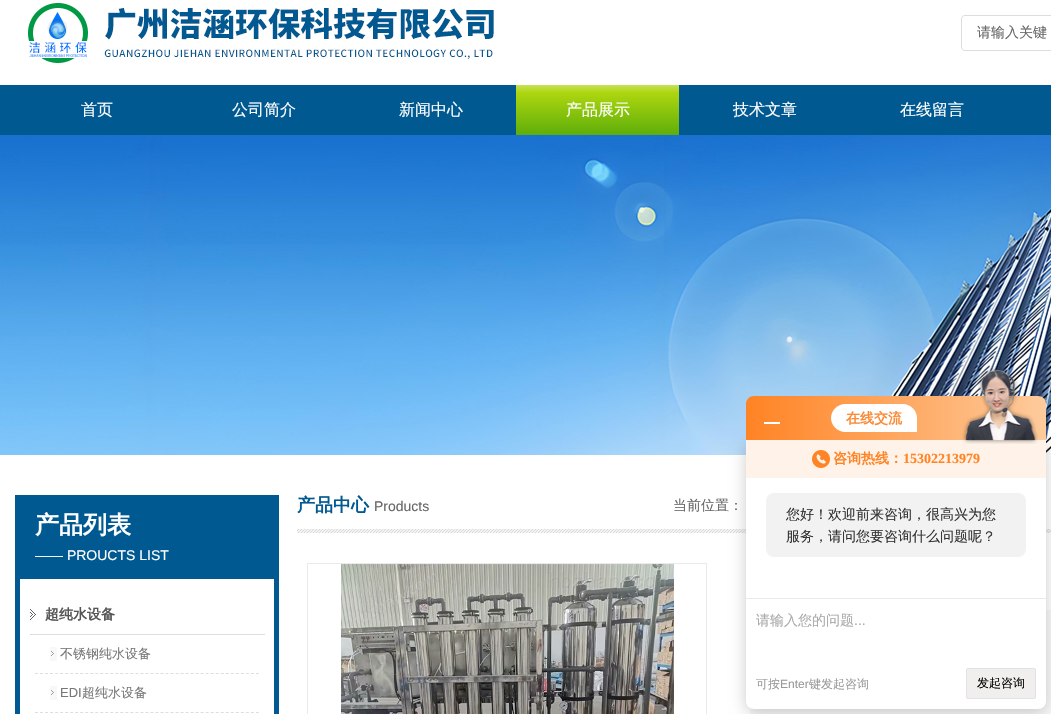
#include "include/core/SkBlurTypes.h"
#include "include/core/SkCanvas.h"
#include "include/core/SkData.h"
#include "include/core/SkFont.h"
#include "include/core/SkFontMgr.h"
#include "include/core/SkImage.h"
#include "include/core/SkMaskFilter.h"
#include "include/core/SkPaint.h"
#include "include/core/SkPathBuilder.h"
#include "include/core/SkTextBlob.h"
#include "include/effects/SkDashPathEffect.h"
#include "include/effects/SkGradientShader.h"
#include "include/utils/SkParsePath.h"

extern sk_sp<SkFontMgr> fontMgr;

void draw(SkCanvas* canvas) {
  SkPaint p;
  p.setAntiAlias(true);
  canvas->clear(SK_ColorWHITE);
  p.setColor(SkColorSetRGB(137, 188, 235));
  p.setMaskFilter(SkMaskFilter::MakeBlur(kNormal_SkBlurStyle, 1.5f));
  canvas->drawRect(SkRect::MakeLTRB(0, 87, 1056, 137), p);
  p.setMaskFilter(nullptr);
  canvas->drawImageRect(SkImages::DeferredFromEncodedData(SkData::MakeFromFileName("images/1.png")), SkRect::MakeLTRB(15, 3, 615, 85), SkSamplingOptions());
  p.setColor(SkColorSetRGB(221, 221, 221));
  canvas->drawPath(SkPathBuilder(SkPathFillType::kEvenOdd).moveTo(965, 15).lineTo(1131, 15).lineTo(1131, 51).lineTo(965, 51).cubicTo(963, 51, 961, 49, 961, 47).lineTo(961, 19).cubicTo(961, 17, 963, 15, 965, 15).close().moveTo(965, 16).lineTo(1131, 16).lineTo(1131, 50).lineTo(965, 50).cubicTo(963, 50, 962, 49, 962, 47).lineTo(962, 19).cubicTo(962, 17, 963, 16, 965, 16).close().detach(), p);
  p.setColor(SkColorSetRGB(0, 89, 145));
  canvas->drawRect(SkRect::MakeLTRB(0, 85, 1051, 135), p);
  {
    const SkColor colors[] = {SkColorSetRGB(251, 251, 251), SkColorSetRGB(174, 214, 15), SkColorSetRGB(66, 160, 8)};
    const float stops[] = {0, 0.3f, 1};
    const SkPoint ends[] = {{598, 68}, {598, 150}};
    p.setShader(SkGradientShader::MakeLinear(ends, colors, stops, 3, SkTileMode::kClamp));
    p.setAlpha(255);
  }
  canvas->drawRect(SkRect::MakeLTRB(516, 85, 679, 135), p);
  canvas->drawImageRect(SkImages::DeferredFromEncodedData(SkData::MakeFromFileName("images/2.png")), SkRect::MakeLTRB(0, 135, 1051, 455), SkSamplingOptions());
  canvas->drawImageRect(SkImages::DeferredFromEncodedData(SkData::MakeFromFileName("images/3.png")), SkRect::MakeLTRB(297, 529, 1051, 533), SkSamplingOptions());
  p.setStyle(SkPaint::kStroke_Style);
  p.setStrokeWidth(1);
  p.setShader(nullptr);
  p.setColor(SkColorSetRGB(234, 234, 234));
  canvas->drawRect(SkRect::MakeLTRB(307.5f, 563.5f, 706.5f, 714.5f), p);
  canvas->drawImageRect(SkImages::DeferredFromEncodedData(SkData::MakeFromFileName("images/4.png")), SkRect::MakeLTRB(341, 564, 674, 714), SkSamplingOptions());
  p.setStyle(SkPaint::kFill_Style);
  p.setColor(SkColorSetRGB(248, 248, 248));
  canvas->drawRect(SkRect::MakeLTRB(750, 610, 1051, 714), p);
  p.setColor(SkColorSetRGB(0, 89, 145));
  canvas->drawRect(SkRect::MakeLTRB(15, 495, 279, 579), p);
  canvas->drawRect(SkRect::MakeLTRB(274, 579, 279, 714), p);
  canvas->drawRect(SkRect::MakeLTRB(15, 579, 20, 714), p);
  canvas->drawImageRect(SkImages::DeferredFromEncodedData(SkData::MakeFromFileName("images/5.png")), SkRect::MakeLTRB(30, 609, 36, 620), SkSamplingOptions());
  p.setColor(SkColorSetRGB(222, 222, 222));
  canvas->drawRect(SkRect::MakeLTRB(30, 634, 265, 635), p);
  p.setStyle(SkPaint::kStroke_Style);
  p.setPathEffect(SkDashPathEffect::Make({{3, 2.02f}}, 0));
  canvas->drawPath(SkPathBuilder().moveTo(35, 673.5f).lineTo(259, 673.5f).detach(), p);
  p.setPathEffect(nullptr);
  canvas->drawImageRect(SkImages::DeferredFromEncodedData(SkData::MakeFromFileName("images/6.png")), SkRect::MakeLTRB(50, 647, 57, 661), SkSamplingOptions());
  p.setPathEffect(SkDashPathEffect::Make({{3, 2.02f}}, 0));
  canvas->drawPath(SkPathBuilder().moveTo(35, 712.5f).lineTo(259, 712.5f).detach(), p);
  p.setPathEffect(nullptr);
  canvas->drawImageRect(SkImages::DeferredFromEncodedData(SkData::MakeFromFileName("images/6.png")), SkRect::MakeLTRB(50, 686, 57, 700), SkSamplingOptions());
  p.setStyle(SkPaint::kFill_Style);
  p.setColor(SkColorSetARGB(51, 0, 0, 0));
  p.setMaskFilter(SkMaskFilter::MakeBlur(kNormal_SkBlurStyle, 8));
  canvas->drawRoundRect(SkRect::MakeLTRB(746, 444, 1046, 713), 8, 8, p);
  p.setMaskFilter(nullptr);
  {
    const SkColor colors[] = {SkColorSetRGB(255, 131, 36), SkColorSetRGB(254, 203, 156)};
    const float stops[] = {0, 1};
    const SkPoint ends[] = {{746, 418}, {1046, 418}};
    p.setShader(SkGradientShader::MakeLinear(ends, colors, stops, 2, SkTileMode::kClamp));
    p.setAlpha(255);
  }
  canvas->drawPath(SkPathBuilder().moveTo(754, 396).lineTo(1038, 396).cubicTo(1042.5f, 396, 1046, 399.5f, 1046, 404).lineTo(1046, 440).lineTo(746, 440).lineTo(746, 404).cubicTo(746, 399.5f, 749.5f, 396, 754, 396).close().detach(), p);
  p.setShader(nullptr);
  p.setColor(SK_ColorWHITE);
  canvas->drawRect(SkRect::MakeLTRB(764, 422, 780, 424), p);
  canvas->drawPath(SkPathBuilder().moveTo(845, 404).lineTo(903, 404).cubicTo(910.5f, 404, 917, 410.5f, 917, 418).lineTo(917, 432).lineTo(845, 432).cubicTo(837.5f, 432, 831, 425.5f, 831, 418).cubicTo(831, 410.5f, 837.5f, 404, 845, 404).close().detach(), p);
  canvas->drawPath(SkPathBuilder().moveTo(746, 440).lineTo(1046, 440).lineTo(1046, 701).cubicTo(1046, 705.5f, 1042.5f, 709, 1038, 709).lineTo(754, 709).cubicTo(749.5f, 709, 746, 705.5f, 746, 701).close().detach(), p);
  p.setColor(SkColorSetRGB(255, 243, 233));
  canvas->drawRect(SkRect::MakeLTRB(746, 440, 1046, 478), p);
  canvas->drawImageRect(SkImages::DeferredFromEncodedData(SkData::MakeFromFileName("images/7.png")), SkRect::MakeLTRB(962, 366, 1038, 444), SkSamplingOptions());
  canvas->drawImageRect(SkImages::DeferredFromEncodedData(SkData::MakeFromFileName("images/8.png")), SkRect::MakeLTRB(812, 450, 830, 468), SkSamplingOptions());
  p.setColor(SkColorSetRGB(242, 242, 242));
  canvas->drawRoundRect(SkRect::MakeLTRB(766, 493, 1026, 557), 8, 8, p);
  p.setColor(SkColorSetRGB(234, 234, 234));
  canvas->drawRect(SkRect::MakeLTRB(746, 598, 1046, 599), p);
  p.setColor(SkColorSetRGB(240, 239, 237));
  canvas->drawRoundRect(SkRect::MakeLTRB(966.5f, 668.5f, 1035.5f, 698.5f), 1.5f, 1.5f, p);
  p.setStyle(SkPaint::kStroke_Style);
  p.setColor(SkColorSetRGB(226, 226, 226));
  canvas->drawRoundRect(SkRect::MakeLTRB(966.5f, 668.5f, 1035.5f, 698.5f), 1.5f, 1.5f, p);
  SkFont font1(fontMgr->matchFamilyStyle("WenQuanYi Zen Hei", SkFontStyle(500, SkFontStyle::kNormal_Width, SkFontStyle::kUpright_Slant)), 14);
  font1.setSubpixel(true);
  p.setStyle(SkPaint::kFill_Style);
  p.setColor(SkColorSetRGB(102, 102, 102));
  canvas->drawString("请输入关键", 977, 37, font1, p);
  SkFont font2(fontMgr->matchFamilyStyle("WenQuanYi Zen Hei", SkFontStyle(500, SkFontStyle::kNormal_Width, SkFontStyle::kUpright_Slant)), 16);
  font2.setSubpixel(true);
  p.setColor(SK_ColorWHITE);
  canvas->drawString("首页", 81, 115, font2, p);
  canvas->drawString("公司简介", 232, 115, font2, p);
  canvas->drawString("新闻中心", 399, 115, font2, p);
  canvas->drawString("产品展示", 566, 115, font2, p);
  canvas->drawString("技术文章", 733, 115, font2, p);
  canvas->drawString("在线留言", 900, 115, font2, p);
  SkFont font3(fontMgr->matchFamilyStyle("WenQuanYi Zen Hei", SkFontStyle::Bold()), 18);
  font3.setSubpixel(true);
  p.setColor(SkColorSetRGB(0, 89, 145));
  canvas->drawString("产品中心", 297, 511, font3, p);
  SkFont font4(fontMgr->matchFamilyStyle("Liberation Sans", SkFontStyle::Normal()), 14);
  font4.setSubpixel(true);
  p.setColor(SkColorSetRGB(102, 102, 102));
  canvas->drawString("Products", 374, 511, font4, p);
  canvas->drawString("当前位置：", 673, 510, font1, p);
  SkFont font5(fontMgr->matchFamilyStyle("WenQuanYi Zen Hei", SkFontStyle::Bold()), 24);
  font5.setSubpixel(true);
  p.setColor(SK_ColorWHITE);
  canvas->drawString("产品列表", 35, 533, font5, p);
  canvas->drawString("—— PROUCTS LIST", 35, 560, font4, p);
  SkFont font6(fontMgr->matchFamilyStyle("WenQuanYi Zen Hei", SkFontStyle::Bold()), 14);
  font6.setSubpixel(true);
  p.setColor(SkColorSetRGB(85, 85, 85));
  canvas->drawString("超纯水设备", 45, 619, font6, p);
  SkFont font7(fontMgr->matchFamilyStyle("WenQuanYi Zen Hei", SkFontStyle(500, SkFontStyle::kNormal_Width, SkFontStyle::kUpright_Slant)), 13);
  font7.setSubpixel(true);
  p.setColor(SkColorSetRGB(119, 119, 119));
  canvas->drawString("不锈钢纯水设备", 60, 658, font7, p);
  SkFont font8(fontMgr->matchFamilyStyle("Liberation Sans", SkFontStyle::Normal()), 13);
  font8.setSubpixel(true);
  canvas->drawString("EDI", 60, 697, font8, p);
  canvas->drawString("超纯水设备", 82, 697, font7, p);
  p.setColor(SkColorSetRGB(251, 139, 54));
  canvas->drawString("在线交流", 846, 423, font6, p);
  p.setColor(SkColorSetRGB(255, 132, 38));
  canvas->drawString("咨询热线：", 833, 463, font6, p);
  SkFont font9(fontMgr->matchFamilyStyle("Liberation Serif", SkFontStyle::Bold()), 14);
  font9.setSubpixel(true);
  canvas->drawString("15302213979", 903, 463, font9, p);
  p.setColor(SkColorSetRGB(51, 51, 51));
  canvas->drawString("您好！欢迎前来咨询，很高兴为您", 786, 519, font1, p);
  canvas->drawString("服务，请问您要咨询什么问题呢？", 786, 541, font1, p);
  p.setColor(SkColorSetRGB(170, 170, 170));
  canvas->drawString("请输入您的问题", 756, 625, font1, p);
  canvas->drawString("...", 854, 625, font4, p);
  SkFont font10(fontMgr->matchFamilyStyle("WenQuanYi Zen Hei", SkFontStyle(500, SkFontStyle::kNormal_Width, SkFontStyle::kUpright_Slant)), 12);
  font10.setSubpixel(true);
  p.setColor(SkColorSetRGB(153, 153, 153));
  canvas->drawString("可按", 756, 688, font10, p);
  SkFont font11(fontMgr->matchFamilyStyle("Liberation Sans", SkFontStyle::Normal()), 12);
  font11.setSubpixel(true);
  canvas->drawString("Enter", 780, 688, font11, p);
  canvas->drawString("键发起咨询", 809, 688, font10, p);
  p.setColor(SK_ColorBLACK);
  canvas->drawString("发起咨询", 977, 687, font10, p);
}
